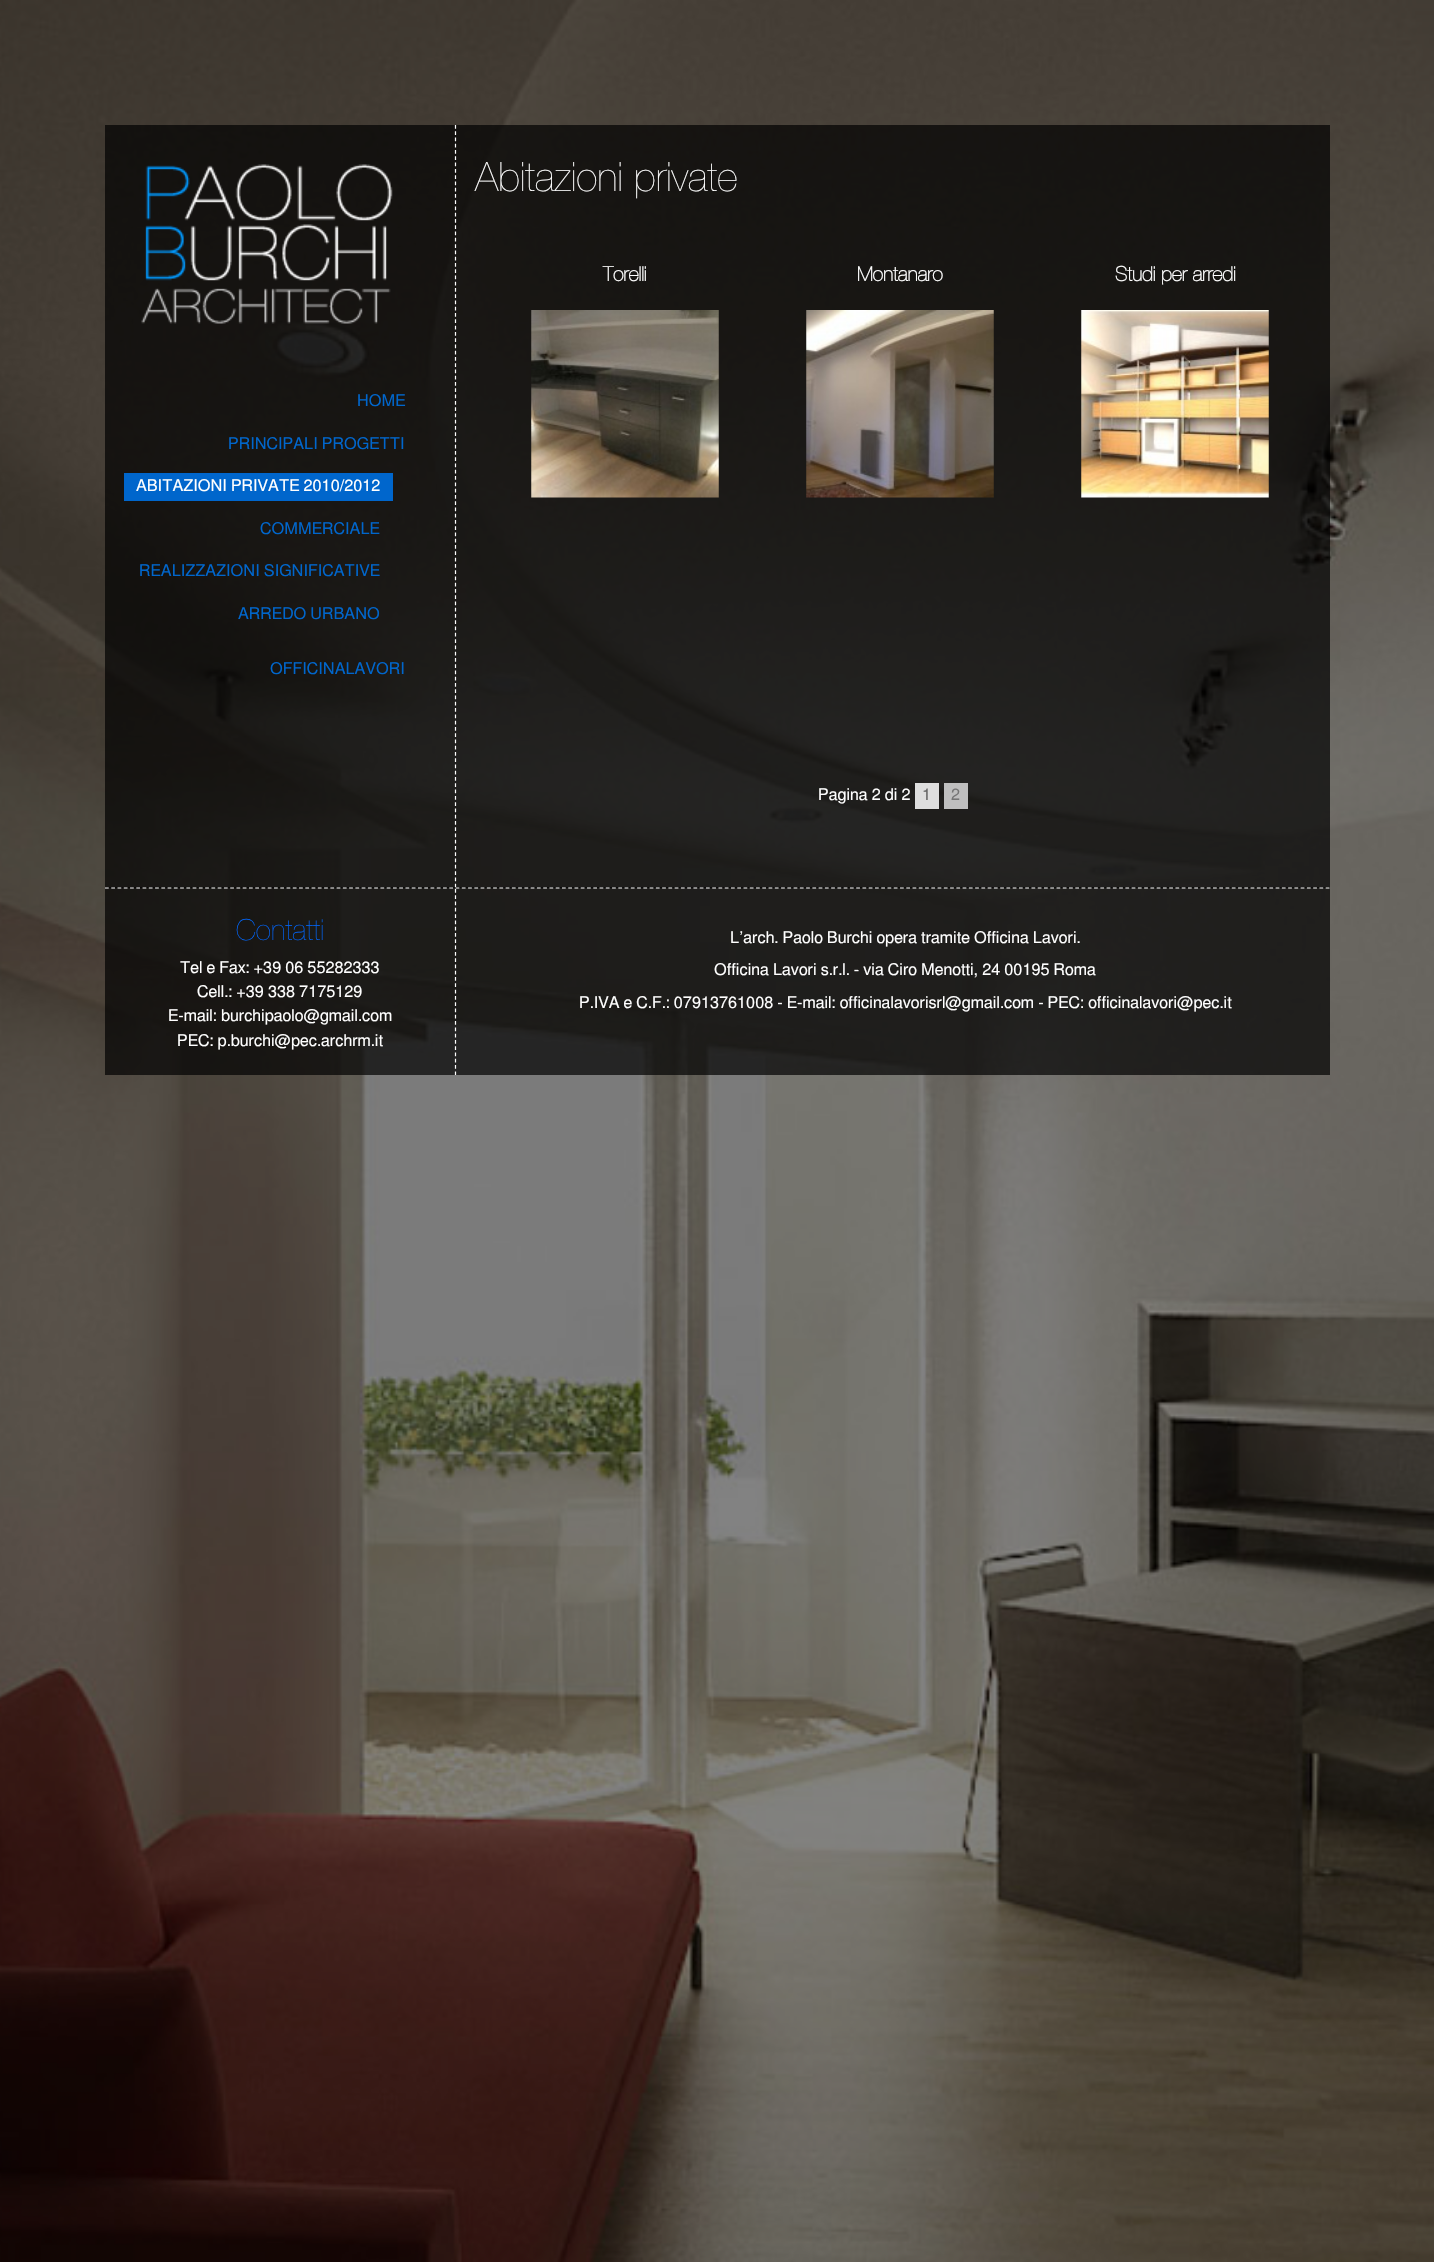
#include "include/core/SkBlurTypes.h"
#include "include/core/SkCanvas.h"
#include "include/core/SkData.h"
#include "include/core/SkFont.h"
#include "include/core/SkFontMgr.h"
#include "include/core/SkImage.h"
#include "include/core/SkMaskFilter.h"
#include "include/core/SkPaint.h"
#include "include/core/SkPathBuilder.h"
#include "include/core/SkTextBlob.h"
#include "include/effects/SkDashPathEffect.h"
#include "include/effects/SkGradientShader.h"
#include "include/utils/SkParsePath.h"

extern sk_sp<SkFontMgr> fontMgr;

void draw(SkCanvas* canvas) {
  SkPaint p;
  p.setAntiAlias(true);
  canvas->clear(SK_ColorBLACK);
  canvas->drawImageRect(SkImages::DeferredFromEncodedData(SkData::MakeFromFileName("images/1.png")), SkRect::MakeLTRB(0, 0, 1434, 2262), SkSamplingOptions());
  p.setColor(SkColorSetARGB(179, 0, 0, 0));
  canvas->drawRect(SkRect::MakeLTRB(105, 125, 1330, 888), p);
  p.setStyle(SkPaint::kStroke_Style);
  p.setStrokeWidth(1.2f);
  p.setColor(SK_ColorWHITE);
  p.setPathEffect(SkDashPathEffect::Make({{3.75f, 2.52f}}, 0));
  canvas->drawPath(SkPathBuilder().moveTo(455.5f, 125).lineTo(455.5f, 887.5f).detach(), p);
  p.setPathEffect(nullptr);
  canvas->drawImageRect(SkImages::DeferredFromEncodedData(SkData::MakeFromFileName("images/2.png")), SkRect::MakeLTRB(141, 164, 393, 324), SkSamplingOptions());
  p.setStyle(SkPaint::kFill_Style);
  p.setColor(SkColorSetRGB(0, 102, 204));
  canvas->drawRect(SkRect::MakeLTRB(124, 473, 393, 501), p);
  canvas->drawImageRect(SkImages::DeferredFromEncodedData(SkData::MakeFromFileName("images/3.png")), SkRect::MakeLTRB(531, 310, 719, 498), SkSamplingOptions());
  canvas->drawImageRect(SkImages::DeferredFromEncodedData(SkData::MakeFromFileName("images/4.png")), SkRect::MakeLTRB(806, 310, 994, 498), SkSamplingOptions());
  canvas->drawImageRect(SkImages::DeferredFromEncodedData(SkData::MakeFromFileName("images/5.png")), SkRect::MakeLTRB(1081, 310, 1269, 498), SkSamplingOptions());
  p.setColor(SkColorSetRGB(222, 222, 222));
  canvas->drawRect(SkRect::MakeLTRB(915, 783, 939, 809), p);
  p.setColor(SkColorSetRGB(191, 191, 191));
  canvas->drawRect(SkRect::MakeLTRB(944, 783, 968, 809), p);
  p.setColor(SkColorSetARGB(179, 0, 0, 0));
  canvas->drawRect(SkRect::MakeLTRB(105, 887, 1330, 1075), p);
  p.setStyle(SkPaint::kStroke_Style);
  p.setColor(SK_ColorWHITE);
  p.setPathEffect(SkDashPathEffect::Make({{3.75f, 2.51f}}, 0));
  canvas->drawPath(SkPathBuilder().moveTo(105, 888).lineTo(1330, 888).detach(), p);
  p.setPathEffect(nullptr);
  p.setPathEffect(SkDashPathEffect::Make({{3.75f, 2.54f}}, 0));
  canvas->drawPath(SkPathBuilder().moveTo(455.5f, 889).lineTo(455.5f, 1075).detach(), p);
  p.setPathEffect(nullptr);
  SkFont font1(fontMgr->matchFamilyStyle("FreeSans", SkFontStyle::Normal()), 16.25f);
  font1.setSubpixel(true);
  p.setStyle(SkPaint::kFill_Style);
  p.setColor(SkColorSetRGB(0, 102, 204));
  canvas->drawString("HOME", 357, 406, font1, p);
  canvas->drawString("PRINCIPALI PROGETTI", 228, 449, font1, p);
  p.setColor(SK_ColorWHITE);
  canvas->drawString("ABITAZIONI PRIVATE 2010/2012", 136, 491, font1, p);
  p.setColor(SkColorSetRGB(0, 102, 204));
  canvas->drawString("COMMERCIALE", 260, 534, font1, p);
  canvas->drawString("REALIZZAZIONI SIGNIFICATIVE", 139, 576, font1, p);
  canvas->drawString("ARREDO URBANO", 238, 619, font1, p);
  canvas->drawString("OFFICINALAVORI", 270, 674, font1, p);
  SkFont font2(fontMgr->matchFamilyStyle("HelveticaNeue", SkFontStyle::Normal()), 40.5f);
  font2.setSubpixel(true);
  p.setColor(SK_ColorWHITE);
  canvas->drawString("Abitazioni private", 475, 191, font2, p);
  SkFont font3(fontMgr->matchFamilyStyle("HelveticaNeue", SkFontStyle::Bold()), 20);
  font3.setSubpixel(true);
  canvas->drawString("Torelli", 603, 281, font3, p);
  canvas->drawString("Montanaro", 857, 281, font3, p);
  canvas->drawString("Studi per arredi", 1115, 281, font3, p);
  canvas->drawString("Pagina 2 di 2", 818, 800, font1, p);
  p.setColor(SkColorSetRGB(102, 102, 102));
  canvas->drawString("1", 922, 800, font1, p);
  p.setColor(SkColorSetRGB(117, 117, 117));
  canvas->drawString("2", 951, 800, font1, p);
  SkFont font4(fontMgr->matchFamilyStyle("HelveticaNeue", SkFontStyle::Normal()), 29);
  font4.setSubpixel(true);
  p.setColor(SkColorSetRGB(0, 102, 255));
  canvas->drawString("Contatti", 236, 940, font4, p);
  p.setColor(SK_ColorWHITE);
  canvas->drawString("Tel e Fax: +39 06 55282333", 180, 973, font1, p);
  canvas->drawString("Cell.: +39 338 7175129", 197, 997, font1, p);
  canvas->drawString("E-mail: burchipaolo@gmail.com", 168, 1021, font1, p);
  canvas->drawString("PEC: p.burchi@pec.archrm.it", 177, 1046, font1, p);
  canvas->drawString("L’arch. Paolo Burchi opera tramite Officina Lavori.", 730, 943, font1, p);
  canvas->drawString("Officina Lavori s.r.l. - via Ciro Menotti, 24 00195 Roma", 714, 975, font1, p);
  canvas->drawString("P.IVA e C.F.: 07913761008 - E-mail: officinalavorisrl@gmail.com - PEC: officinalavori@pec.it", 579, 1008, font1, p);
}
